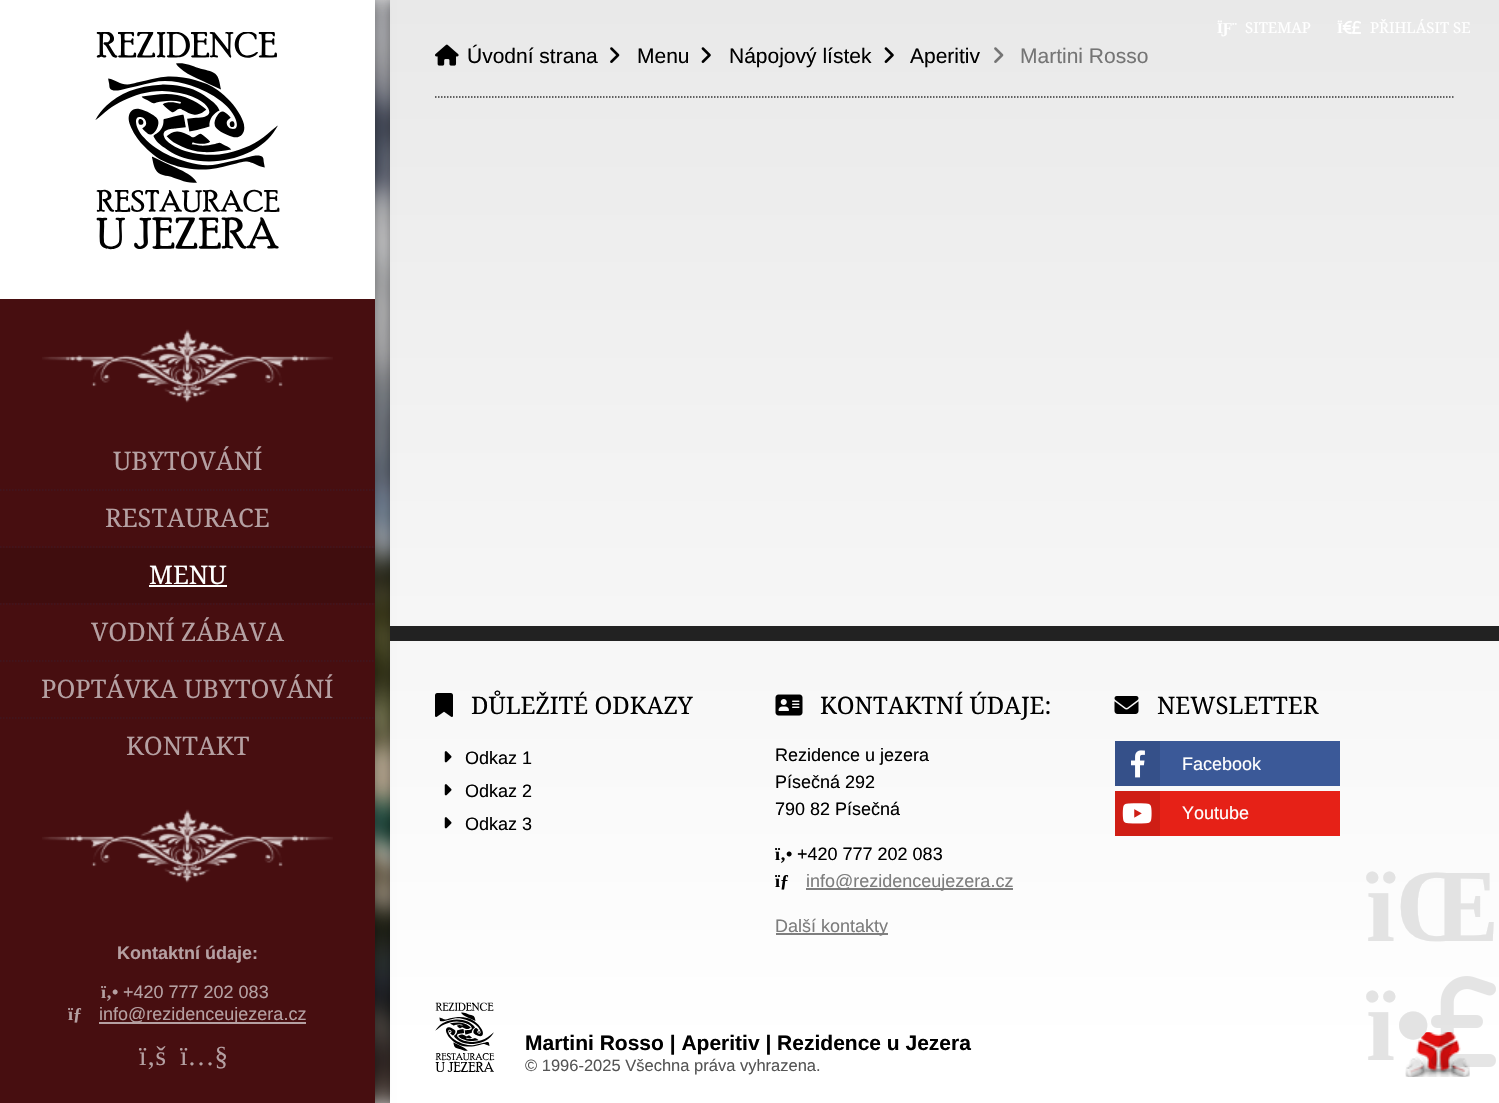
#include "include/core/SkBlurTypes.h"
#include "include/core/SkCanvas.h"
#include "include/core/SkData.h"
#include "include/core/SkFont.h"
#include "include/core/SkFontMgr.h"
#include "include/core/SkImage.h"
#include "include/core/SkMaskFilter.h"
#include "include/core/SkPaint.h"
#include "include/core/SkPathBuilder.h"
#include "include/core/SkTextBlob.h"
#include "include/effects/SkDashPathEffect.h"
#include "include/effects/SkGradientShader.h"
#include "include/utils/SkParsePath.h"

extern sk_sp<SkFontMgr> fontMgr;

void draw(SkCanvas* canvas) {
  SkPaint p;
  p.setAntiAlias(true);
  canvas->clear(SK_ColorWHITE);
  canvas->drawImageRect(SkImages::DeferredFromEncodedData(SkData::MakeFromFileName("images/1.png")), SkRect::MakeLTRB(375, 0, 390, 1103), SkSamplingOptions());
  p.setColor(SkColorSetARGB(26, 0, 0, 0));
  p.setMaskFilter(SkMaskFilter::MakeBlur(kNormal_SkBlurStyle, 10.5f));
  canvas->drawRect(SkRect::MakeLTRB(-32, -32, 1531, 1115), p);
  p.setMaskFilter(nullptr);
  p.setColor(SkColorSetARGB(128, 0, 0, 0));
  p.setMaskFilter(SkMaskFilter::MakeBlur(kNormal_SkBlurStyle, 7.5f));
  canvas->drawRect(SkRect::MakeLTRB(390, 0, 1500, 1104), p);
  p.setMaskFilter(nullptr);
  {
    const SkColor colors[] = {SkColorSetRGB(233, 233, 233), SK_ColorWHITE};
    const float stops[] = {0, 0.95f};
    const SkPoint ends[] = {{945, 0}, {945, 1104}};
    p.setShader(SkGradientShader::MakeLinear(ends, colors, stops, 2, SkTileMode::kClamp));
    p.setAlpha(255);
  }
  canvas->drawRect(SkRect::MakeLTRB(390, 0, 1499, 1103), p);
  canvas->drawImageRect(SkImages::DeferredFromEncodedData(SkData::MakeFromFileName("images/2.png")), SkRect::MakeLTRB(1342, 20, 1361, 34), SkSamplingOptions());
  p.setShader(nullptr);
  p.setColor(SkColorSetRGB(34, 34, 34));
  canvas->drawRect(SkRect::MakeLTRB(390, 626, 1499, 641), p);
  p.setColor(SkColorSetARGB(128, 0, 0, 0));
  p.setMaskFilter(SkMaskFilter::MakeBlur(kNormal_SkBlurStyle, 7.5f));
  canvas->drawRect(SkRect::MakeLTRB(0, 0, 375, 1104), p);
  p.setMaskFilter(nullptr);
  p.setColor(SkColorSetRGB(71, 14, 16));
  canvas->drawRect(SkRect::MakeLTRB(0, 299, 375, 1103), p);
  p.setColor(SK_ColorWHITE);
  canvas->drawRect(SkRect::MakeLTRB(0, 0, 375, 299), p);
  canvas->drawImageRect(SkImages::DeferredFromEncodedData(SkData::MakeFromFileName("images/3.png")), SkRect::MakeLTRB(95, 32, 280, 250), SkSamplingOptions());
  canvas->drawImageRect(SkImages::DeferredFromEncodedData(SkData::MakeFromFileName("images/4.png")), SkRect::MakeLTRB(42, 329, 333, 403), SkSamplingOptions());
  p.setStyle(SkPaint::kStroke_Style);
  p.setStrokeWidth(1.5f);
  p.setColor(SkColorSetRGB(63, 21, 32));
  p.setPathEffect(SkDashPathEffect::Make({{1.5f, 1.5f}}, 0));
  canvas->drawPath(SkPathBuilder().moveTo(0, 490).lineTo(375, 490).detach(), p);
  p.setPathEffect(nullptr);
  p.setPathEffect(SkDashPathEffect::Make({{1.5f, 1.5f}}, 0));
  canvas->drawPath(SkPathBuilder().moveTo(0, 547).lineTo(375, 547).detach(), p);
  p.setPathEffect(nullptr);
  p.setPathEffect(SkDashPathEffect::Make({{1.5f, 1.5f}}, 0));
  canvas->drawPath(SkPathBuilder().moveTo(0, 604).lineTo(375, 604).detach(), p);
  p.setPathEffect(nullptr);
  p.setStyle(SkPaint::kFill_Style);
  p.setColor(SkColorSetRGB(64, 13, 14));
  canvas->drawRect(SkRect::MakeLTRB(0, 548, 375, 603), p);
  p.setColor(SK_ColorWHITE);
  canvas->drawRect(SkRect::MakeLTRB(149, 585, 227, 587), p);
  p.setStyle(SkPaint::kStroke_Style);
  p.setColor(SkColorSetRGB(63, 21, 32));
  p.setPathEffect(SkDashPathEffect::Make({{1.5f, 1.5f}}, 0));
  canvas->drawPath(SkPathBuilder().moveTo(0, 661).lineTo(375, 661).detach(), p);
  p.setPathEffect(nullptr);
  p.setPathEffect(SkDashPathEffect::Make({{1.5f, 1.5f}}, 0));
  canvas->drawPath(SkPathBuilder().moveTo(0, 718).lineTo(375, 718).detach(), p);
  p.setPathEffect(nullptr);
  canvas->drawImageRect(SkImages::DeferredFromEncodedData(SkData::MakeFromFileName("images/4.png")), SkRect::MakeLTRB(42, 809, 333, 883), SkSamplingOptions());
  p.setStyle(SkPaint::kFill_Style);
  p.setColor(SkColorSetRGB(181, 160, 162));
  canvas->drawRect(SkRect::MakeLTRB(99, 1022, 306, 1024), p);
  p.setStyle(SkPaint::kStroke_Style);
  p.setColor(SkColorSetRGB(51, 51, 51));
  p.setPathEffect(SkDashPathEffect::Make({{1.5f, 1.5f}}, 0));
  canvas->drawPath(SkPathBuilder().moveTo(435, 97).lineTo(1455, 97).detach(), p);
  p.setPathEffect(nullptr);
  canvas->drawImageRect(SkImages::DeferredFromEncodedData(SkData::MakeFromFileName("images/5.png")), SkRect::MakeLTRB(435, 44, 459, 66), SkSamplingOptions());
  canvas->drawImageRect(SkImages::DeferredFromEncodedData(SkData::MakeFromFileName("images/6.png")), SkRect::MakeLTRB(610, 47, 620, 63), SkSamplingOptions());
  canvas->drawImageRect(SkImages::DeferredFromEncodedData(SkData::MakeFromFileName("images/7.png")), SkRect::MakeLTRB(701, 47, 711, 63), SkSamplingOptions());
  canvas->drawImageRect(SkImages::DeferredFromEncodedData(SkData::MakeFromFileName("images/7.png")), SkRect::MakeLTRB(884, 47, 894, 63), SkSamplingOptions());
  canvas->drawImageRect(SkImages::DeferredFromEncodedData(SkData::MakeFromFileName("images/8.png")), SkRect::MakeLTRB(994, 47, 1004, 63), SkSamplingOptions());
  canvas->drawImageRect(SkImages::DeferredFromEncodedData(SkData::MakeFromFileName("images/9.png")), SkRect::MakeLTRB(435, 693, 453, 717), SkSamplingOptions());
  canvas->drawImageRect(SkImages::DeferredFromEncodedData(SkData::MakeFromFileName("images/10.png")), SkRect::MakeLTRB(444, 751, 452, 763), SkSamplingOptions());
  canvas->drawImageRect(SkImages::DeferredFromEncodedData(SkData::MakeFromFileName("images/11.png")), SkRect::MakeLTRB(444, 784, 452, 796), SkSamplingOptions());
  canvas->drawImageRect(SkImages::DeferredFromEncodedData(SkData::MakeFromFileName("images/12.png")), SkRect::MakeLTRB(444, 817, 452, 829), SkSamplingOptions());
  canvas->drawImageRect(SkImages::DeferredFromEncodedData(SkData::MakeFromFileName("images/13.png")), SkRect::MakeLTRB(775, 694, 803, 716), SkSamplingOptions());
  p.setStyle(SkPaint::kFill_Style);
  p.setColor(SkColorSetRGB(126, 126, 126));
  canvas->drawRect(SkRect::MakeLTRB(806, 888, 1013, 890), p);
  p.setColor(SkColorSetRGB(127, 127, 127));
  canvas->drawRect(SkRect::MakeLTRB(776, 933, 888, 935), p);
  canvas->drawImageRect(SkImages::DeferredFromEncodedData(SkData::MakeFromFileName("images/14.png")), SkRect::MakeLTRB(1114, 696, 1139, 714), SkSamplingOptions());
  p.setColor(SkColorSetRGB(59, 89, 152));
  canvas->drawRect(SkRect::MakeLTRB(1160, 741, 1340, 786), p);
  p.setColor(SkColorSetRGB(53, 80, 137));
  canvas->drawRect(SkRect::MakeLTRB(1115, 741, 1160, 786), p);
  canvas->drawImageRect(SkImages::DeferredFromEncodedData(SkData::MakeFromFileName("images/15.png")), SkRect::MakeLTRB(1131, 750, 1145, 778), SkSamplingOptions());
  p.setColor(SkColorSetRGB(230, 33, 23));
  canvas->drawRect(SkRect::MakeLTRB(1160, 791, 1340, 836), p);
  p.setColor(SkColorSetRGB(207, 30, 21));
  canvas->drawRect(SkRect::MakeLTRB(1115, 791, 1160, 836), p);
  canvas->drawImageRect(SkImages::DeferredFromEncodedData(SkData::MakeFromFileName("images/16.png")), SkRect::MakeLTRB(1122, 803, 1152, 824), SkSamplingOptions());
  canvas->drawImageRect(SkImages::DeferredFromEncodedData(SkData::MakeFromFileName("images/17.png")), SkRect::MakeLTRB(435, 1002, 495, 1072), SkSamplingOptions());
  canvas->drawImageRect(SkImages::DeferredFromEncodedData(SkData::MakeFromFileName("images/18.png")), SkRect::MakeLTRB(1405, 1032, 1470, 1077), SkSamplingOptions());
  canvas->drawImageRect(SkImages::DeferredFromEncodedData(SkData::MakeFromFileName("images/19.png")), SkRect::MakeLTRB(1431, 976, 1496, 1067), SkSamplingOptions());
  SkFont font1(fontMgr->matchFamilyStyle("Liberation Serif", SkFontStyle::Bold()), 15);
  font1.setSubpixel(true);
  p.setColor(SK_ColorWHITE);
  canvas->drawString("ÏƑ¨", 1217, 33, font1, p);
  SkFont font2(fontMgr->matchFamilyStyle("Noto Serif", SkFontStyle::Normal()), 15);
  font2.setSubpixel(true);
  canvas->drawString("SITEMAP", 1245, 33, font2, p);
  canvas->drawString("Ï", 1337, 33, font1, p);
  canvas->drawString("PŘIHLÁSIT SE", 1370, 33, font2, p);
  SkFont font3(fontMgr->matchFamilyStyle("Noto Serif", SkFontStyle::Normal()), 25.5f);
  font3.setSubpixel(true);
  p.setColor(SkColorSetRGB(181, 160, 162));
  canvas->drawString("UBYTOVÁNÍ", 113, 470, font3, p);
  canvas->drawString("RESTAURACE", 105, 527, font3, p);
  p.setColor(SK_ColorWHITE);
  canvas->drawString("MENU", 149, 584, font3, p);
  p.setColor(SkColorSetRGB(181, 160, 162));
  canvas->drawString("VODNÍ ZÁBAVA", 91, 641, font3, p);
  canvas->drawString("POPTÁVKA UBYTOVÁNÍ", 41, 698, font3, p);
  canvas->drawString("KONTAKT", 126, 755, font3, p);
  SkFont font4(fontMgr->matchFamilyStyle("Liberation Sans", SkFontStyle::Bold()), 18);
  font4.setSubpixel(true);
  canvas->drawString("Kontaktní údaje:", 117, 959, font4, p);
  SkFont font5(fontMgr->matchFamilyStyle("Liberation Serif", SkFontStyle::Bold()), 18);
  font5.setSubpixel(true);
  canvas->drawString("ï‚•", 101, 998, font5, p);
  SkFont font6(fontMgr->matchFamilyStyle("Liberation Sans", SkFontStyle::Normal()), 18);
  font6.setSubpixel(true);
  canvas->drawString("+420 777 202 083", 123, 998, font6, p);
  canvas->drawString("ïƒ", 68, 1020, font5, p);
  canvas->drawString("info@rezidenceujezera.cz", 99, 1020, font6, p);
  SkFont font7(fontMgr->matchFamilyStyle("Liberation Serif", SkFontStyle::Normal()), 27);
  font7.setSubpixel(true);
  canvas->drawString("ï‚š", 139, 1065, font7, p);
  canvas->drawString("ï…§", 180, 1065, font7, p);
  SkFont font8(fontMgr->matchFamilyStyle("Liberation Sans", SkFontStyle::Normal()), 21);
  font8.setSubpixel(true);
  p.setColor(SK_ColorBLACK);
  canvas->drawString("Úvodní strana", 467, 63, font8, p);
  canvas->drawString("Menu", 637, 63, font8, p);
  canvas->drawString("Nápojový lístek", 729, 63, font8, p);
  canvas->drawString("Aperitiv", 910, 63, font8, p);
  p.setColor(SkColorSetRGB(117, 117, 117));
  canvas->drawString("Martini Rosso", 1020, 63, font8, p);
  SkFont font9(fontMgr->matchFamilyStyle("Noto Serif", SkFontStyle::Normal()), 24);
  font9.setSubpixel(true);
  p.setColor(SK_ColorBLACK);
  canvas->drawString("DŮLEŽITÉ ODKAZY", 471, 714, font9, p);
  canvas->drawString("Odkaz 1", 465, 764, font6, p);
  canvas->drawString("Odkaz 2", 465, 797, font6, p);
  canvas->drawString("Odkaz 3", 465, 830, font6, p);
  canvas->drawString("KONTAKTNÍ ÚDAJE:", 820, 714, font9, p);
  canvas->drawString("Rezidence u jezera", 775, 761, font6, p);
  canvas->drawString("Písečná 292", 775, 788, font6, p);
  canvas->drawString("790 82 Písečná", 775, 815, font6, p);
  canvas->drawString("ï‚•", 775, 860, font5, p);
  canvas->drawString("+420 777 202 083", 797, 860, font6, p);
  canvas->drawString("ïƒ", 775, 887, font5, p);
  p.setColor(SkColorSetRGB(125, 125, 125));
  canvas->drawString("info@rezidenceujezera.cz", 806, 887, font6, p);
  canvas->drawString("Další kontakty", 775, 932, font6, p);
  p.setColor(SK_ColorBLACK);
  canvas->drawString("NEWSLETTER", 1157, 714, font9, p);
  p.setColor(SK_ColorWHITE);
  canvas->drawString("Facebook", 1182, 770, font6, p);
  canvas->drawString("Youtube", 1182, 819, font6, p);
  SkFont font10(fontMgr->matchFamilyStyle("Liberation Sans", SkFontStyle::Bold()), 21);
  font10.setSubpixel(true);
  p.setColor(SK_ColorBLACK);
  canvas->drawString("Martini Rosso | Aperitiv | Rezidence u Jezera", 525, 1050, font10, p);
  SkFont font11(fontMgr->matchFamilyStyle("Liberation Sans", SkFontStyle::Normal()), 16.5f);
  font11.setSubpixel(true);
  p.setColor(SkColorSetRGB(85, 85, 85));
  canvas->drawString("© 1996-2025 Všechna práva vyhrazena.", 525, 1071, font11, p);
  SkFont font12(fontMgr->matchFamilyStyle("Liberation Serif", SkFontStyle::Bold()), 104);
  font12.setSubpixel(true);
  p.setColor(SkColorSetRGB(227, 227, 227));
  canvas->drawString("ïŒ", 1366, 941, font12, p);
  canvas->drawString("ï•", 1366, 1060, font12, p);
}
